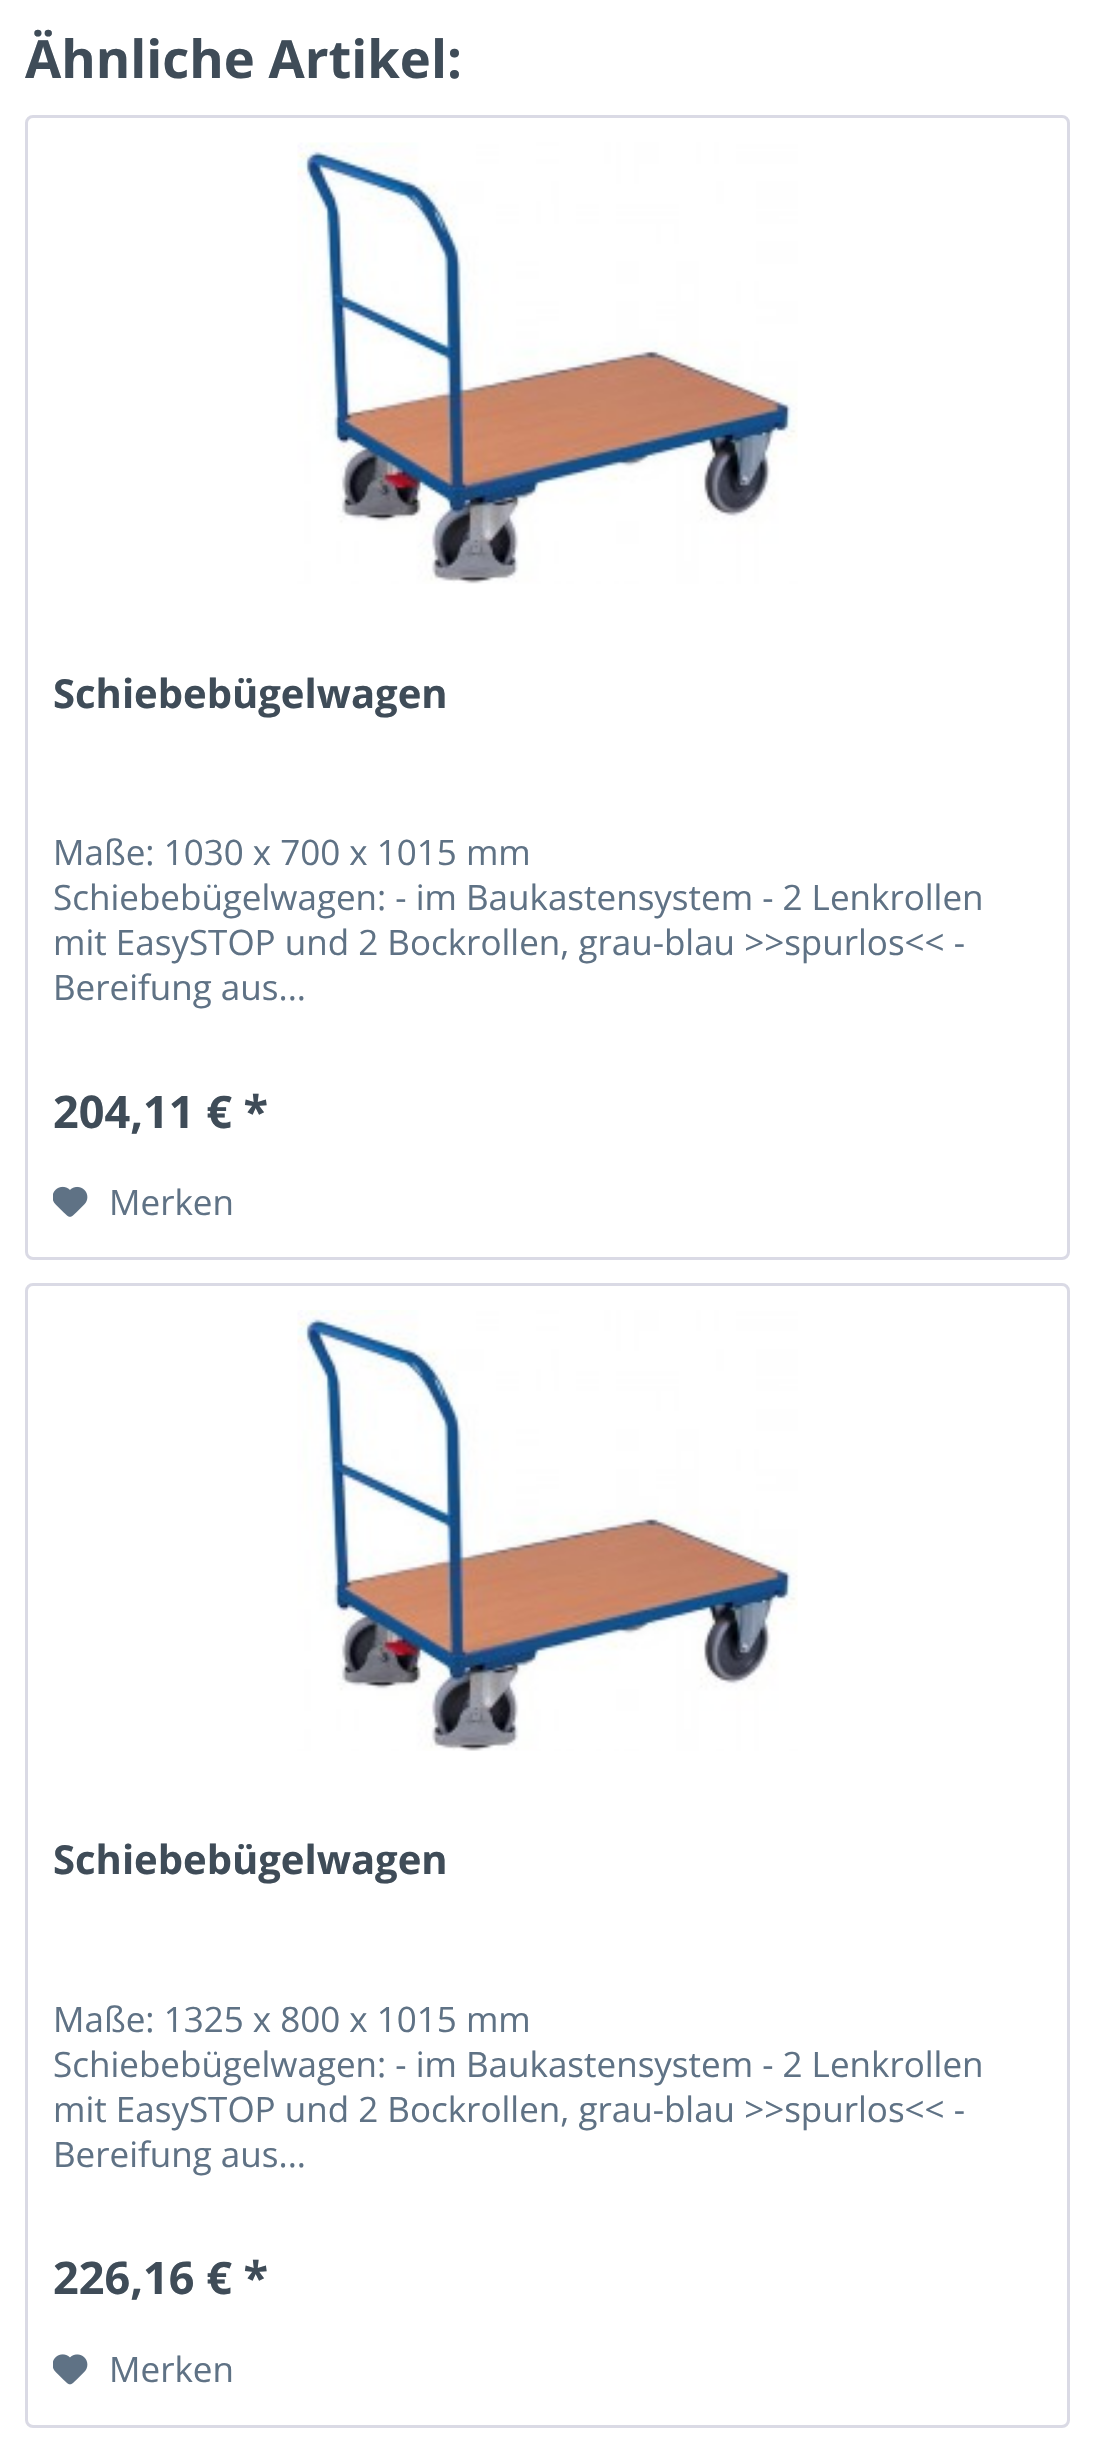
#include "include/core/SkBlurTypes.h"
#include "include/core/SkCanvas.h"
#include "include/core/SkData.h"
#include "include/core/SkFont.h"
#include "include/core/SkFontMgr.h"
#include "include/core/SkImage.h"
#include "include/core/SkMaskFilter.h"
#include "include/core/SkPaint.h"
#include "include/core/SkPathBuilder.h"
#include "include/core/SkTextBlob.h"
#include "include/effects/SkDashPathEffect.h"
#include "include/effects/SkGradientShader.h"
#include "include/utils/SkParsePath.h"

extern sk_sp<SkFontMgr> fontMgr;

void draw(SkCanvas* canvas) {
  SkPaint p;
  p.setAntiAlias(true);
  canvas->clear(SK_ColorWHITE);
  p.setStyle(SkPaint::kStroke_Style);
  p.setStrokeWidth(3);
  p.setColor(SkColorSetRGB(218, 218, 229));
  canvas->drawRoundRect(SkRect::MakeLTRB(26.5f, 116.5f, 1068.5f, 1258.5f), 6.5f, 6.5f, p);
  canvas->drawImageRect(SkImages::DeferredFromEncodedData(SkData::MakeFromFileName("images/1.png")), SkRect::MakeLTRB(297, 142, 798, 584), SkSamplingOptions());
  canvas->drawImageRect(SkImages::DeferredFromEncodedData(SkData::MakeFromFileName("images/2.png")), SkRect::MakeLTRB(53, 1186, 88, 1217), SkSamplingOptions());
  canvas->drawRoundRect(SkRect::MakeLTRB(26.5f, 1284.5f, 1068.5f, 2426.5f), 6.5f, 6.5f, p);
  canvas->drawImageRect(SkImages::DeferredFromEncodedData(SkData::MakeFromFileName("images/3.png")), SkRect::MakeLTRB(297, 1310, 798, 1751), SkSamplingOptions());
  canvas->drawImageRect(SkImages::DeferredFromEncodedData(SkData::MakeFromFileName("images/4.png")), SkRect::MakeLTRB(53, 2354, 88, 2385), SkSamplingOptions());
  SkFont font1(fontMgr->matchFamilyStyle("Open Sans", SkFontStyle::Bold()), 52.5f);
  font1.setSubpixel(true);
  p.setStyle(SkPaint::kFill_Style);
  p.setColor(SkColorSetRGB(63, 76, 88));
  canvas->drawString("Ähnliche Artikel:", 25, 78, font1, p);
  SkFont font2(fontMgr->matchFamilyStyle("Open Sans", SkFontStyle::Bold()), 40);
  font2.setSubpixel(true);
  canvas->drawString("Schiebebügelwagen", 53, 708, font2, p);
  SkFont font3(fontMgr->matchFamilyStyle("Open Sans", SkFontStyle::Normal()), 35);
  font3.setSubpixel(true);
  p.setColor(SkColorSetRGB(95, 114, 133));
  canvas->drawString("Maße: 1030 x 700 x 1015 mm", 53, 865, font3, p);
  canvas->drawString("Schiebebügelwagen: - im Baukastensystem - 2 Lenkrollen", 53, 910, font3, p);
  canvas->drawString("mit EasySTOP und 2 Bockrollen, grau-blau >>spurlos<< -", 53, 955, font3, p);
  canvas->drawString("Bereifung aus...", 53, 1000, font3, p);
  SkFont font4(fontMgr->matchFamilyStyle("Open Sans", SkFontStyle::Bold()), 45);
  font4.setSubpixel(true);
  p.setColor(SkColorSetRGB(63, 76, 88));
  canvas->drawString("204,11 € *", 53, 1128, font4, p);
  p.setColor(SkColorSetRGB(95, 114, 133));
  canvas->drawString("Merken", 109, 1215, font3, p);
  p.setColor(SkColorSetRGB(63, 76, 88));
  canvas->drawString("Schiebebügelwagen", 53, 1874, font2, p);
  p.setColor(SkColorSetRGB(95, 114, 133));
  canvas->drawString("Maße: 1325 x 800 x 1015 mm", 53, 2032, font3, p);
  canvas->drawString("Schiebebügelwagen: - im Baukastensystem - 2 Lenkrollen", 53, 2077, font3, p);
  canvas->drawString("mit EasySTOP und 2 Bockrollen, grau-blau >>spurlos<< -", 53, 2122, font3, p);
  canvas->drawString("Bereifung aus...", 53, 2167, font3, p);
  p.setColor(SkColorSetRGB(63, 76, 88));
  canvas->drawString("226,16 € *", 53, 2294, font4, p);
  p.setColor(SkColorSetRGB(95, 114, 133));
  canvas->drawString("Merken", 109, 2382, font3, p);
}
